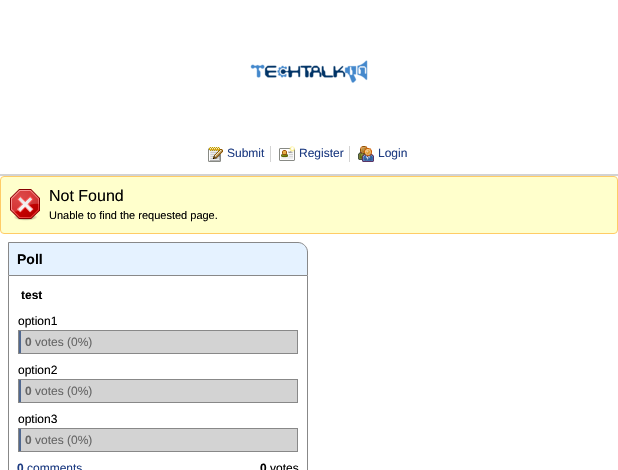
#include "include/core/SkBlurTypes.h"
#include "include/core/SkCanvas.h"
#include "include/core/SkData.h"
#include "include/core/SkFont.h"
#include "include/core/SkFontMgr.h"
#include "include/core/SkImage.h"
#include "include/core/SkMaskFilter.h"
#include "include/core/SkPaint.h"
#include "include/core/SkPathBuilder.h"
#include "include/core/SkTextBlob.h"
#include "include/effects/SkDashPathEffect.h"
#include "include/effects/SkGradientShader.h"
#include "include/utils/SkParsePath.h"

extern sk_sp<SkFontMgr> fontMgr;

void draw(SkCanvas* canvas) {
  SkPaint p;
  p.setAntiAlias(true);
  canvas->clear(SK_ColorWHITE);
  p.setColor(SkColorSetRGB(211, 211, 211));
  canvas->drawRect(SkRect::MakeLTRB(0, 174, 618, 176), p);
  canvas->drawImageRect(SkImages::DeferredFromEncodedData(SkData::MakeFromFileName("images/1.png")), SkRect::MakeLTRB(250, 60, 368, 83), SkSamplingOptions());
  canvas->drawRect(SkRect::MakeLTRB(270, 146, 271, 162), p);
  canvas->drawImageRect(SkImages::DeferredFromEncodedData(SkData::MakeFromFileName("images/2.png")), SkRect::MakeLTRB(208, 147, 223, 162), SkSamplingOptions());
  canvas->drawRect(SkRect::MakeLTRB(349, 146, 350, 162), p);
  canvas->drawImageRect(SkImages::DeferredFromEncodedData(SkData::MakeFromFileName("images/3.png")), SkRect::MakeLTRB(279, 146, 295, 161), SkSamplingOptions());
  canvas->drawImageRect(SkImages::DeferredFromEncodedData(SkData::MakeFromFileName("images/4.png")), SkRect::MakeLTRB(358, 146, 374, 162), SkSamplingOptions());
  p.setColor(SkColorSetRGB(255, 255, 204));
  canvas->drawRoundRect(SkRect::MakeLTRB(0.5f, 176.5f, 617.5f, 233.5f), 3.5f, 3.5f, p);
  p.setStyle(SkPaint::kStroke_Style);
  p.setStrokeWidth(1);
  p.setColor(SkColorSetRGB(255, 204, 102));
  canvas->drawRoundRect(SkRect::MakeLTRB(0.5f, 176.5f, 617.5f, 233.5f), 3.5f, 3.5f, p);
  canvas->drawImageRect(SkImages::DeferredFromEncodedData(SkData::MakeFromFileName("images/5.png")), SkRect::MakeLTRB(10, 189, 40, 221), SkSamplingOptions());
  p.setStyle(SkPaint::kFill_Style);
  p.setColor(SkColorSetRGB(229, 242, 255));
  canvas->drawPath(SkPathBuilder().moveTo(8.5f, 242.5f).lineTo(298, 242.5f).cubicTo(303, 242.5f, 307.5f, 247, 307.5f, 252).lineTo(307.5f, 275.5f).lineTo(8.5f, 275.5f).close().detach(), p);
  p.setStyle(SkPaint::kStroke_Style);
  p.setColor(SkColorSetRGB(136, 136, 136));
  canvas->drawPath(SkPathBuilder().moveTo(8.5f, 242.5f).lineTo(298, 242.5f).cubicTo(303, 242.5f, 307.5f, 247, 307.5f, 252).lineTo(307.5f, 275.5f).lineTo(8.5f, 275.5f).close().detach(), p);
  p.setStyle(SkPaint::kFill_Style);
  canvas->drawPath(SkPathBuilder(SkPathFillType::kEvenOdd).moveTo(8, 276).lineTo(308, 276).lineTo(308, 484).lineTo(18, 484).cubicTo(12, 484, 8, 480, 8, 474).close().moveTo(9, 276).lineTo(307, 276).lineTo(307, 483).lineTo(18, 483).cubicTo(13, 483, 9, 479, 9, 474).close().detach(), p);
  p.setStyle(SkPaint::kStroke_Style);
  canvas->drawRect(SkRect::MakeLTRB(18.5f, 330.5f, 297.5f, 353.5f), p);
  p.setStyle(SkPaint::kFill_Style);
  p.setColor(SkColorSetRGB(80, 104, 144));
  canvas->drawRect(SkRect::MakeLTRB(19, 331, 21, 353), p);
  p.setColor(SkColorSetRGB(211, 211, 211));
  canvas->drawRect(SkRect::MakeLTRB(21, 331, 297, 353), p);
  p.setStyle(SkPaint::kStroke_Style);
  p.setColor(SkColorSetRGB(136, 136, 136));
  canvas->drawRect(SkRect::MakeLTRB(18.5f, 379.5f, 297.5f, 402.5f), p);
  p.setStyle(SkPaint::kFill_Style);
  p.setColor(SkColorSetRGB(80, 104, 144));
  canvas->drawRect(SkRect::MakeLTRB(19, 380, 21, 402), p);
  p.setColor(SkColorSetRGB(211, 211, 211));
  canvas->drawRect(SkRect::MakeLTRB(21, 380, 297, 402), p);
  p.setStyle(SkPaint::kStroke_Style);
  p.setColor(SkColorSetRGB(136, 136, 136));
  canvas->drawRect(SkRect::MakeLTRB(18.5f, 428.5f, 297.5f, 451.5f), p);
  p.setStyle(SkPaint::kFill_Style);
  p.setColor(SkColorSetRGB(80, 104, 144));
  canvas->drawRect(SkRect::MakeLTRB(19, 429, 21, 451), p);
  p.setColor(SkColorSetRGB(211, 211, 211));
  canvas->drawRect(SkRect::MakeLTRB(21, 429, 297, 451), p);
  SkFont font1(fontMgr->matchFamilyStyle("Liberation Sans", SkFontStyle::Normal()), 12);
  font1.setSubpixel(true);
  p.setColor(SkColorSetRGB(30, 60, 130));
  canvas->drawString("Submit", 227, 157, font1, p);
  canvas->drawString("Register", 299, 157, font1, p);
  canvas->drawString("Login", 378, 157, font1, p);
  SkFont font2(fontMgr->matchFamilyStyle("Liberation Sans", SkFontStyle::Normal()), 16);
  font2.setSubpixel(true);
  p.setColor(SK_ColorBLACK);
  canvas->drawString("Not Found", 49, 201, font2, p);
  SkFont font3(fontMgr->matchFamilyStyle("Liberation Sans", SkFontStyle::Normal()), 11);
  font3.setSubpixel(true);
  canvas->drawString("Unable to find the requested page.", 49, 219, font3, p);
  SkFont font4(fontMgr->matchFamilyStyle("Liberation Sans", SkFontStyle::Bold()), 14);
  font4.setSubpixel(true);
  canvas->drawString("Poll", 17, 264, font4, p);
  SkFont font5(fontMgr->matchFamilyStyle("Liberation Sans", SkFontStyle::Bold()), 12);
  font5.setSubpixel(true);
  canvas->drawString("test", 21, 299, font5, p);
  canvas->drawString("option1", 18, 325, font1, p);
  p.setColor(SkColorSetRGB(102, 102, 102));
  canvas->drawString("0", 25, 346, font5, p);
  canvas->drawString("votes (0%)", 35, 346, font1, p);
  p.setColor(SK_ColorBLACK);
  canvas->drawString("option2", 18, 374, font1, p);
  p.setColor(SkColorSetRGB(102, 102, 102));
  canvas->drawString("0", 25, 395, font5, p);
  canvas->drawString("votes (0%)", 35, 395, font1, p);
  p.setColor(SK_ColorBLACK);
  canvas->drawString("option3", 18, 423, font1, p);
  p.setColor(SkColorSetRGB(102, 102, 102));
  canvas->drawString("0", 25, 444, font5, p);
  canvas->drawString("votes (0%)", 35, 444, font1, p);
  p.setColor(SkColorSetRGB(30, 60, 130));
  canvas->drawString("0", 17, 472, font5, p);
  canvas->drawString("comments", 27, 472, font1, p);
  p.setColor(SK_ColorBLACK);
  canvas->drawString("0", 260, 472, font5, p);
  canvas->drawString("votes", 270, 472, font1, p);
}
